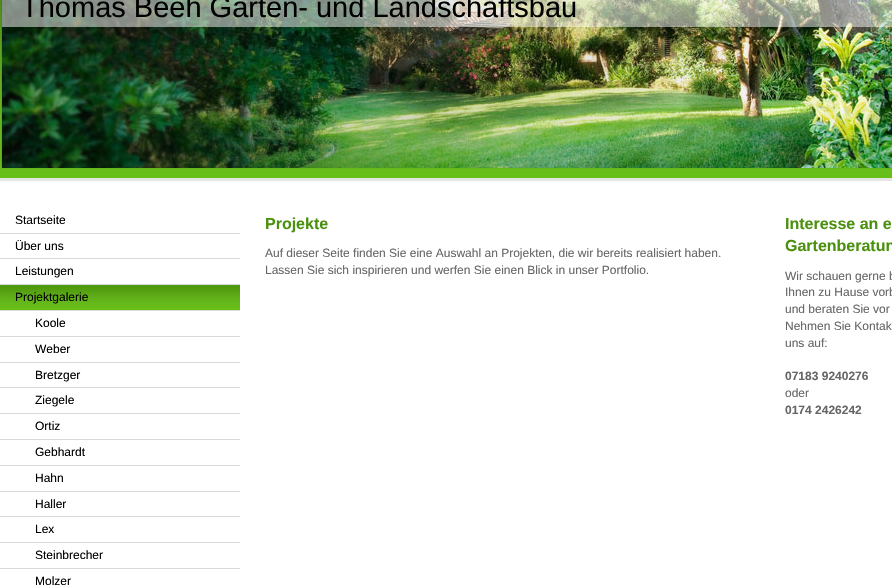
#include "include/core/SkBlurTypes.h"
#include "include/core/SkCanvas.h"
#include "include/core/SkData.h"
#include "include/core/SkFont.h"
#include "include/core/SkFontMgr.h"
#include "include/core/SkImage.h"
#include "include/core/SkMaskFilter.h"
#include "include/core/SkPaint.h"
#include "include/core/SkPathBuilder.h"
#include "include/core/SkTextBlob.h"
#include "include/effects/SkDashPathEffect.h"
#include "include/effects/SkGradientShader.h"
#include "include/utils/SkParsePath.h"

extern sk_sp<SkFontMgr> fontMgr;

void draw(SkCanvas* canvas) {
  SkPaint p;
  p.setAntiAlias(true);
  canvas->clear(SkColorSetRGB(99, 191, 17));
  canvas->drawImageRect(SkImages::DeferredFromEncodedData(SkData::MakeFromFileName("images/1.png")), SkRect::MakeLTRB(0, 0, 892, 178), SkSamplingOptions());
  canvas->drawImageRect(SkImages::DeferredFromEncodedData(SkData::MakeFromFileName("images/2.png")), SkRect::MakeLTRB(0, 0, 892, 169), SkSamplingOptions());
  canvas->drawImageRect(SkImages::DeferredFromEncodedData(SkData::MakeFromFileName("images/3.png")), SkRect::MakeLTRB(2, 0, 892, 168), SkSamplingOptions());
  p.setColor(SkColorSetARGB(128, 255, 255, 255));
  canvas->drawRect(SkRect::MakeLTRB(2, 0, 892, 27), p);
  p.setColor(SK_ColorWHITE);
  canvas->drawRect(SkRect::MakeLTRB(0, 181, 892, 588), p);
  p.setColor(SkColorSetRGB(230, 230, 230));
  canvas->drawRect(SkRect::MakeLTRB(0, 178, 892, 181), p);
  p.setColor(SkColorSetRGB(218, 218, 218));
  canvas->drawRect(SkRect::MakeLTRB(0, 233, 240, 234), p);
  canvas->drawRect(SkRect::MakeLTRB(0, 258, 240, 259), p);
  canvas->drawRect(SkRect::MakeLTRB(0, 284, 240, 285), p);
  p.setColor(SkColorSetRGB(99, 191, 17));
  canvas->drawRect(SkRect::MakeLTRB(0, 285, 240, 310), p);
  canvas->drawImageRect(SkImages::DeferredFromEncodedData(SkData::MakeFromFileName("images/4.png")), SkRect::MakeLTRB(0, 285, 240, 310), SkSamplingOptions());
  p.setColor(SkColorSetRGB(218, 218, 218));
  canvas->drawRect(SkRect::MakeLTRB(0, 310, 240, 311), p);
  canvas->drawRect(SkRect::MakeLTRB(0, 336, 240, 337), p);
  canvas->drawRect(SkRect::MakeLTRB(0, 362, 240, 363), p);
  canvas->drawRect(SkRect::MakeLTRB(0, 387, 240, 388), p);
  canvas->drawRect(SkRect::MakeLTRB(0, 413, 240, 414), p);
  canvas->drawRect(SkRect::MakeLTRB(0, 439, 240, 440), p);
  canvas->drawRect(SkRect::MakeLTRB(0, 465, 240, 466), p);
  canvas->drawRect(SkRect::MakeLTRB(0, 491, 240, 492), p);
  canvas->drawRect(SkRect::MakeLTRB(0, 516, 240, 517), p);
  canvas->drawRect(SkRect::MakeLTRB(0, 542, 240, 543), p);
  canvas->drawRect(SkRect::MakeLTRB(0, 568, 240, 569), p);
  SkFont font1(fontMgr->matchFamilyStyle("Liberation Sans", SkFontStyle::Normal()), 29);
  font1.setSubpixel(true);
  p.setColor(SK_ColorBLACK);
  canvas->drawString("Thomas Beeh Garten- und Landschaftsbau", 21, 17, font1, p);
  SkFont font2(fontMgr->matchFamilyStyle("Liberation Sans", SkFontStyle::Normal()), 12);
  font2.setSubpixel(true);
  canvas->drawString("Startseite", 15, 224, font2, p);
  canvas->drawString("Über uns", 15, 250, font2, p);
  canvas->drawString("Leistungen", 15, 275, font2, p);
  canvas->drawString("Projektgalerie", 15, 301, font2, p);
  canvas->drawString("Koole", 35, 327, font2, p);
  canvas->drawString("Weber", 35, 353, font2, p);
  canvas->drawString("Bretzger", 35, 379, font2, p);
  canvas->drawString("Ziegele", 35, 404, font2, p);
  canvas->drawString("Ortiz", 35, 430, font2, p);
  canvas->drawString("Gebhardt", 35, 456, font2, p);
  canvas->drawString("Hahn", 35, 482, font2, p);
  canvas->drawString("Haller", 35, 508, font2, p);
  canvas->drawString("Lex", 35, 533, font2, p);
  canvas->drawString("Steinbrecher", 35, 559, font2, p);
  canvas->drawString("Molzer", 35, 585, font2, p);
  SkFont font3(fontMgr->matchFamilyStyle("Liberation Sans", SkFontStyle::Bold()), 16);
  font3.setSubpixel(true);
  p.setColor(SkColorSetRGB(75, 144, 14));
  canvas->drawString("Projekte", 265, 229, font3, p);
  p.setColor(SkColorSetRGB(102, 102, 102));
  canvas->drawString("Auf dieser Seite finden Sie eine Auswahl an Projekten, die wir bereits realisiert haben.", 265, 257, font2, p);
  canvas->drawString("Lassen Sie sich inspirieren und werfen Sie einen Blick in unser Portfolio.", 265, 274, font2, p);
  p.setColor(SkColorSetRGB(75, 144, 14));
  canvas->drawString("Interesse an e", 785, 229, font3, p);
  canvas->drawString("Gartenberatun", 785, 251, font3, p);
  p.setColor(SkColorSetRGB(102, 102, 102));
  canvas->drawString("Wir schauen gerne b", 785, 280, font2, p);
  canvas->drawString("Ihnen zu Hause vorb", 785, 296, font2, p);
  canvas->drawString("und beraten Sie vor", 785, 313, font2, p);
  canvas->drawString("Nehmen Sie Kontak", 785, 330, font2, p);
  canvas->drawString("uns auf:", 785, 347, font2, p);
  SkFont font4(fontMgr->matchFamilyStyle("Liberation Sans", SkFontStyle::Bold()), 12);
  font4.setSubpixel(true);
  canvas->drawString("07183 9240276", 785, 380, font4, p);
  canvas->drawString("oder", 785, 397, font2, p);
  canvas->drawString("0174 2426242", 785, 414, font4, p);
}
